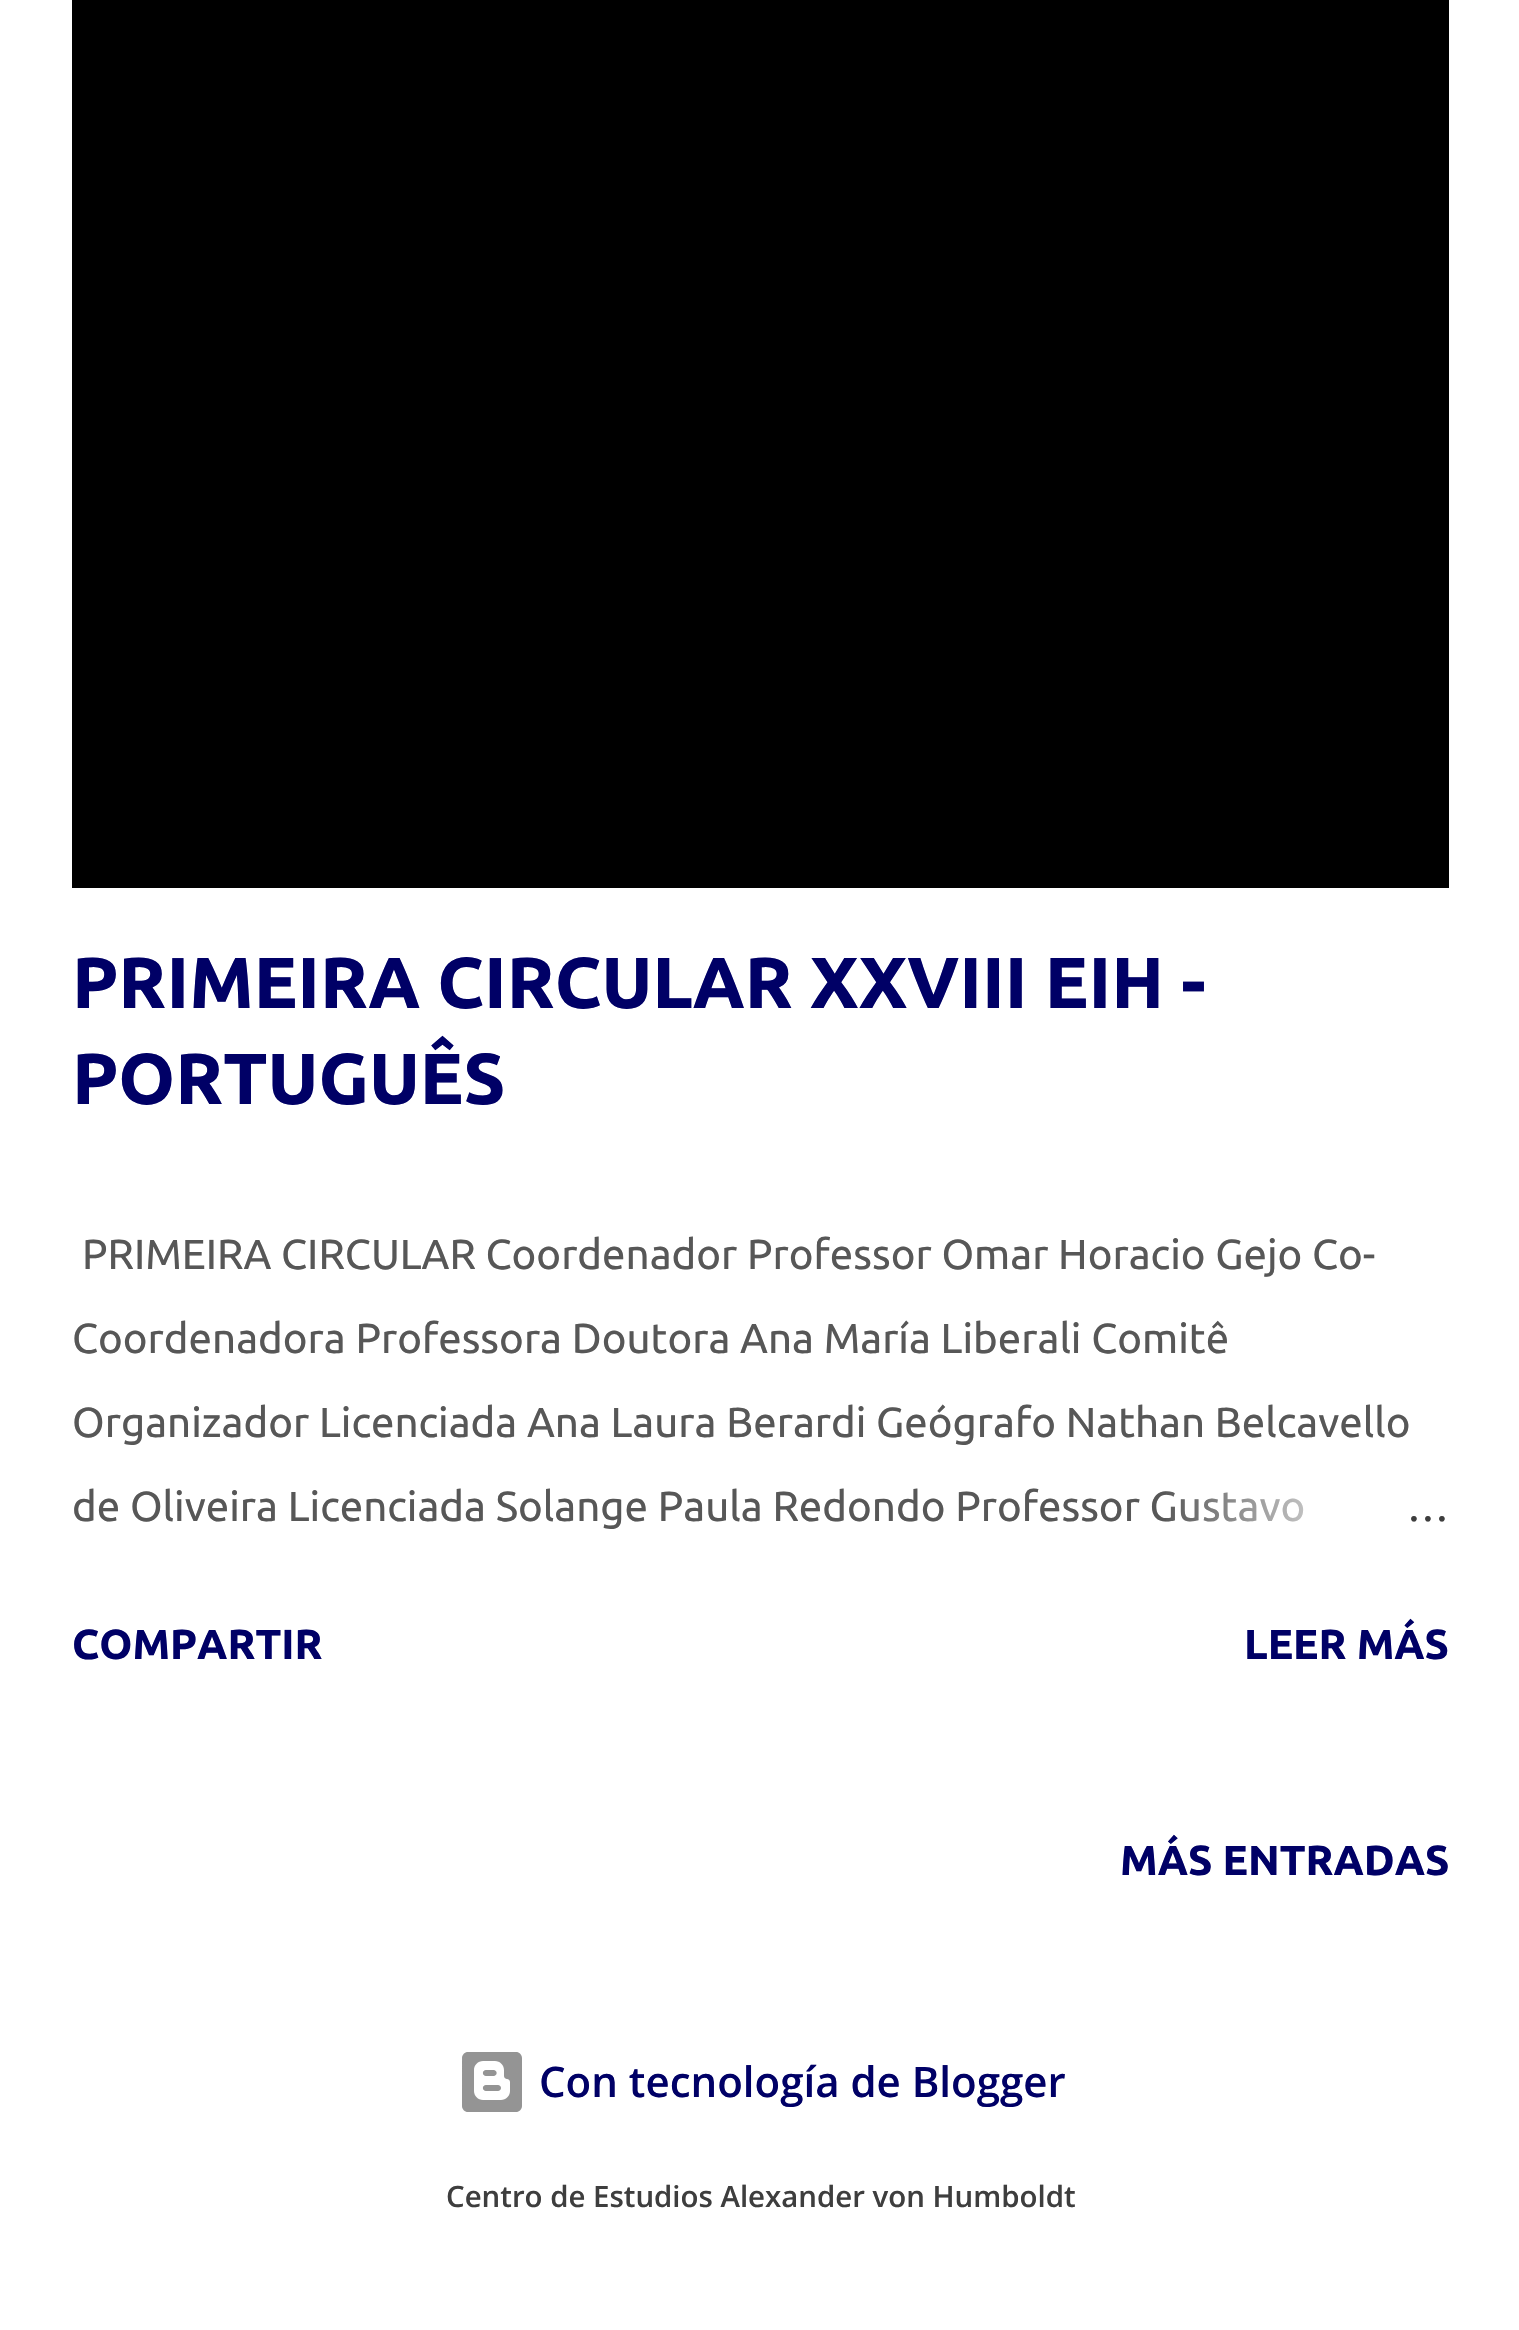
#include "include/core/SkBlurTypes.h"
#include "include/core/SkCanvas.h"
#include "include/core/SkData.h"
#include "include/core/SkFont.h"
#include "include/core/SkFontMgr.h"
#include "include/core/SkImage.h"
#include "include/core/SkMaskFilter.h"
#include "include/core/SkPaint.h"
#include "include/core/SkPathBuilder.h"
#include "include/core/SkTextBlob.h"
#include "include/effects/SkDashPathEffect.h"
#include "include/effects/SkGradientShader.h"
#include "include/utils/SkParsePath.h"

extern sk_sp<SkFontMgr> fontMgr;

void draw(SkCanvas* canvas) {
  SkPaint p;
  p.setAntiAlias(true);
  canvas->clear(SK_ColorWHITE);
  p.setColor(SK_ColorBLACK);
  canvas->drawRect(SkRect::MakeLTRB(72, 0, 1449, 888), p);
  canvas->drawImageRect(SkImages::DeferredFromEncodedData(SkData::MakeFromFileName("images/1.png")), SkRect::MakeLTRB(462, 2052, 522, 2112), SkSamplingOptions());
  SkFont font1(fontMgr->matchFamilyStyle("Ubuntu", SkFontStyle::Bold()), 72);
  font1.setSubpixel(true);
  p.setColor(SkColorSetRGB(0, 0, 102));
  canvas->drawString("PRIMEIRA CIRCULAR XXVIII EIH -", 72, 1008, font1, p);
  canvas->drawString("PORTUGUÊS", 72, 1104, font1, p);
  SkFont font2(fontMgr->matchFamilyStyle("Ubuntu", SkFontStyle::Normal()), 42);
  font2.setSubpixel(true);
  p.setColor(SkColorSetRGB(87, 87, 87));
  canvas->drawString("PRIMEIRA CIRCULAR Coordenador Professor Omar Horacio Gejo Co-", 82, 1269, font2, p);
  canvas->drawString("Coordenadora Professora Doutora Ana María Liberali Comitê", 72, 1353, font2, p);
  canvas->drawString("Organizador Licenciada Ana Laura Berardi Geógrafo Nathan Belcavello", 72, 1437, font2, p);
  canvas->drawString("de Oliveira Licenciada Solange Paula Redondo Professor Gustavo", 72, 1521, font2, p);
  {
    const SkColor colors[] = {SK_ColorWHITE, SK_ColorWHITE, SkColorSetARGB(0, 255, 255, 255)};
    const float stops[] = {0, 0.2f, 1};
    const SkPoint ends[] = {{1449, 1506}, {1161, 1506}};
    p.setShader(SkGradientShader::MakeLinear(ends, colors, stops, 3, SkTileMode::kClamp));
    p.setAlpha(255);
  }
  canvas->drawRect(SkRect::MakeLTRB(1166, 1491, 1304, 1522), p);
  p.setShader(nullptr);
  p.setColor(SkColorSetRGB(62, 62, 62));
  canvas->drawString("…", 1407, 1521, font2, p);
  SkFont font3(fontMgr->matchFamilyStyle("Ubuntu", SkFontStyle::Bold()), 42);
  font3.setSubpixel(true);
  p.setColor(SkColorSetRGB(0, 0, 102));
  canvas->drawString("COMPARTIR", 72, 1659, font3, p);
  canvas->drawString("LEER MÁS", 1244, 1659, font3, p);
  canvas->drawString("MÁS ENTRADAS", 1120, 1875, font3, p);
  SkFont font4(fontMgr->matchFamilyStyle("Open Sans", SkFontStyle(600, SkFontStyle::kNormal_Width, SkFontStyle::kUpright_Slant)), 42);
  font4.setSubpixel(true);
  canvas->drawString("Con tecnología de Blogger", 539, 2097, font4, p);
  SkFont font5(fontMgr->matchFamilyStyle("Open Sans", SkFontStyle(600, SkFontStyle::kNormal_Width, SkFontStyle::kUpright_Slant)), 29.4f);
  font5.setSubpixel(true);
  p.setColor(SkColorSetRGB(62, 62, 62));
  canvas->drawString("Centro de Estudios Alexander von Humboldt", 446, 2207, font5, p);
}
